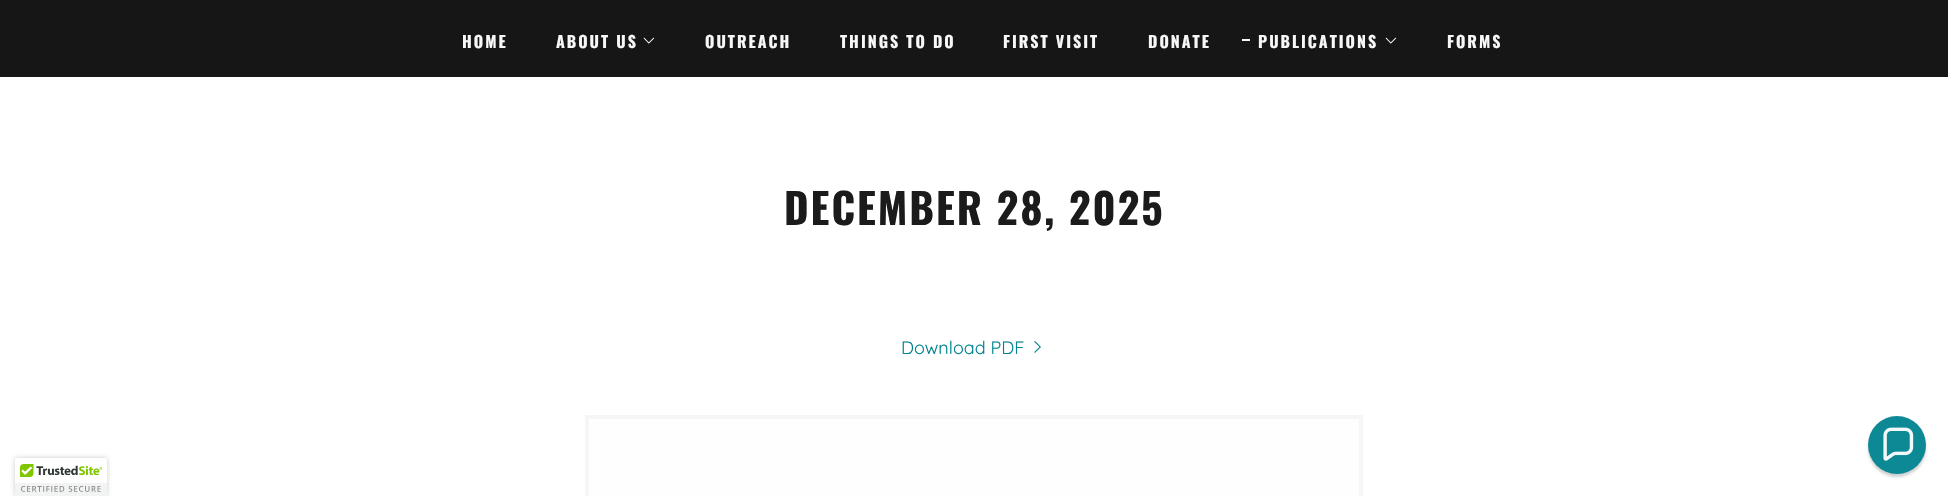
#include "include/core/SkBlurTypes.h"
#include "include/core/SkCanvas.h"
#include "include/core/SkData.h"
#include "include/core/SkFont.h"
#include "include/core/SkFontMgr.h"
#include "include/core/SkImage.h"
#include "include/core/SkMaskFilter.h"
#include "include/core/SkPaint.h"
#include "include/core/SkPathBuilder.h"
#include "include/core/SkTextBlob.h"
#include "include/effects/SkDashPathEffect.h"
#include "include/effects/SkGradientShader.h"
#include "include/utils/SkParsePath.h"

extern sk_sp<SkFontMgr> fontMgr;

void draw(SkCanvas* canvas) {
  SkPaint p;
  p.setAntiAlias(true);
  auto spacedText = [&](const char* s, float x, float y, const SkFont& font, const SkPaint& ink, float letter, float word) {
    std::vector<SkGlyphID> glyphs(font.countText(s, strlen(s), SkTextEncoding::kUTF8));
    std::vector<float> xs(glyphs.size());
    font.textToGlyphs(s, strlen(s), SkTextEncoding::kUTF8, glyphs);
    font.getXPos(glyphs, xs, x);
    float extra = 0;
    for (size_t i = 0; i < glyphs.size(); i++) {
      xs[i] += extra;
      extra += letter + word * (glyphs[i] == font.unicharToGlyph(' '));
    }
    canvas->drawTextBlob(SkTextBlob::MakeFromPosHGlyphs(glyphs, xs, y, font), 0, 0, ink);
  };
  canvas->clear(SkColorSetRGB(22, 22, 22));
  canvas->drawImageRect(SkImages::DeferredFromEncodedData(SkData::MakeFromFileName("images/1.png")), SkRect::MakeLTRB(643, 37, 655, 44), SkSamplingOptions());
  p.setColor(SkColorSetRGB(247, 247, 247));
  canvas->drawRect(SkRect::MakeLTRB(1242, 39, 1250, 41), p);
  canvas->drawImageRect(SkImages::DeferredFromEncodedData(SkData::MakeFromFileName("images/1.png")), SkRect::MakeLTRB(1385, 37, 1397, 44), SkSamplingOptions());
  p.setColor(SK_ColorWHITE);
  canvas->drawRect(SkRect::MakeLTRB(0, 77, 1948, 496), p);
  canvas->drawImageRect(SkImages::DeferredFromEncodedData(SkData::MakeFromFileName("images/2.png")), SkRect::MakeLTRB(1034, 341, 1041, 353), SkSamplingOptions());
  p.setColor(SkColorSetRGB(246, 246, 246));
  canvas->drawRect(SkRect::MakeLTRB(585, 415, 1363, 496), p);
  p.setColor(SkColorSetRGB(254, 254, 254));
  canvas->drawRect(SkRect::MakeLTRB(589, 419, 1359, 496), p);
  p.setColor(SkColorSetARGB(51, 0, 0, 0));
  p.setMaskFilter(SkMaskFilter::MakeBlur(kNormal_SkBlurStyle, 2.5f));
  canvas->drawRoundRect(SkRect::MakeLTRB(15, 458, 107, 496), 2, 2, p);
  p.setMaskFilter(nullptr);
  p.setColor(SK_ColorWHITE);
  canvas->drawPath(SkPathBuilder().moveTo(17, 458).lineTo(105, 458).cubicTo(106, 458, 107, 459, 107, 460).lineTo(107, 496).lineTo(15, 496).lineTo(15, 460).cubicTo(15, 459, 16, 458, 17, 458).close().detach(), p);
  canvas->drawImageRect(SkImages::DeferredFromEncodedData(SkData::MakeFromFileName("images/3.png")), SkRect::MakeLTRB(15, 464, 107, 496), SkSamplingOptions());
  p.setColor(SkColorSetARGB(51, 13, 13, 13));
  p.setMaskFilter(SkMaskFilter::MakeBlur(kNormal_SkBlurStyle, 1.5f));
  canvas->drawRoundRect(SkRect::MakeLTRB(1868, 419, 1926, 477), 29, 29, p);
  p.setMaskFilter(nullptr);
  p.setColor(SkColorSetRGB(13, 137, 150));
  canvas->drawCircle(1897, 445, 29, p);
  canvas->drawImageRect(SkImages::DeferredFromEncodedData(SkData::MakeFromFileName("images/4.png")), SkRect::MakeLTRB(1883, 427, 1914, 461), SkSamplingOptions());
  SkFont font1(fontMgr->matchFamilyStyle("Oswald", SkFontStyle::Bold()), 16);
  font1.setSubpixel(true);
  p.setColor(SkColorSetRGB(247, 247, 247));
  spacedText("HOME", 462, 48, font1, p, 2, 0);
  spacedText("ABOUT US", 556, 48, font1, p, 2, 0);
  spacedText("OUTREACH", 705, 48, font1, p, 2, 0);
  spacedText("THINGS TO DO", 840, 48, font1, p, 2, 0);
  spacedText("FIRST VISIT", 1003, 48, font1, p, 2, 0);
  spacedText("DONATE", 1148, 48, font1, p, 2, 0);
  spacedText("PUBLICATIONS", 1258, 48, font1, p, 2, 0);
  spacedText("FORMS", 1447, 48, font1, p, 2, 0);
  SkFont font2(fontMgr->matchFamilyStyle("Oswald", SkFontStyle::Bold()), 42);
  font2.setSubpixel(true);
  p.setColor(SkColorSetRGB(27, 27, 27));
  spacedText("DECEMBER 28, 2025", 784, 225, font2, p, 2, 0);
  SkFont font3(fontMgr->matchFamilyStyle("Quicksand", SkFontStyle::Normal()), 18);
  font3.setSubpixel(true);
  p.setColor(SkColorSetRGB(0, 131, 144));
  canvas->drawString("Download PDF", 901, 354, font3, p);
}
